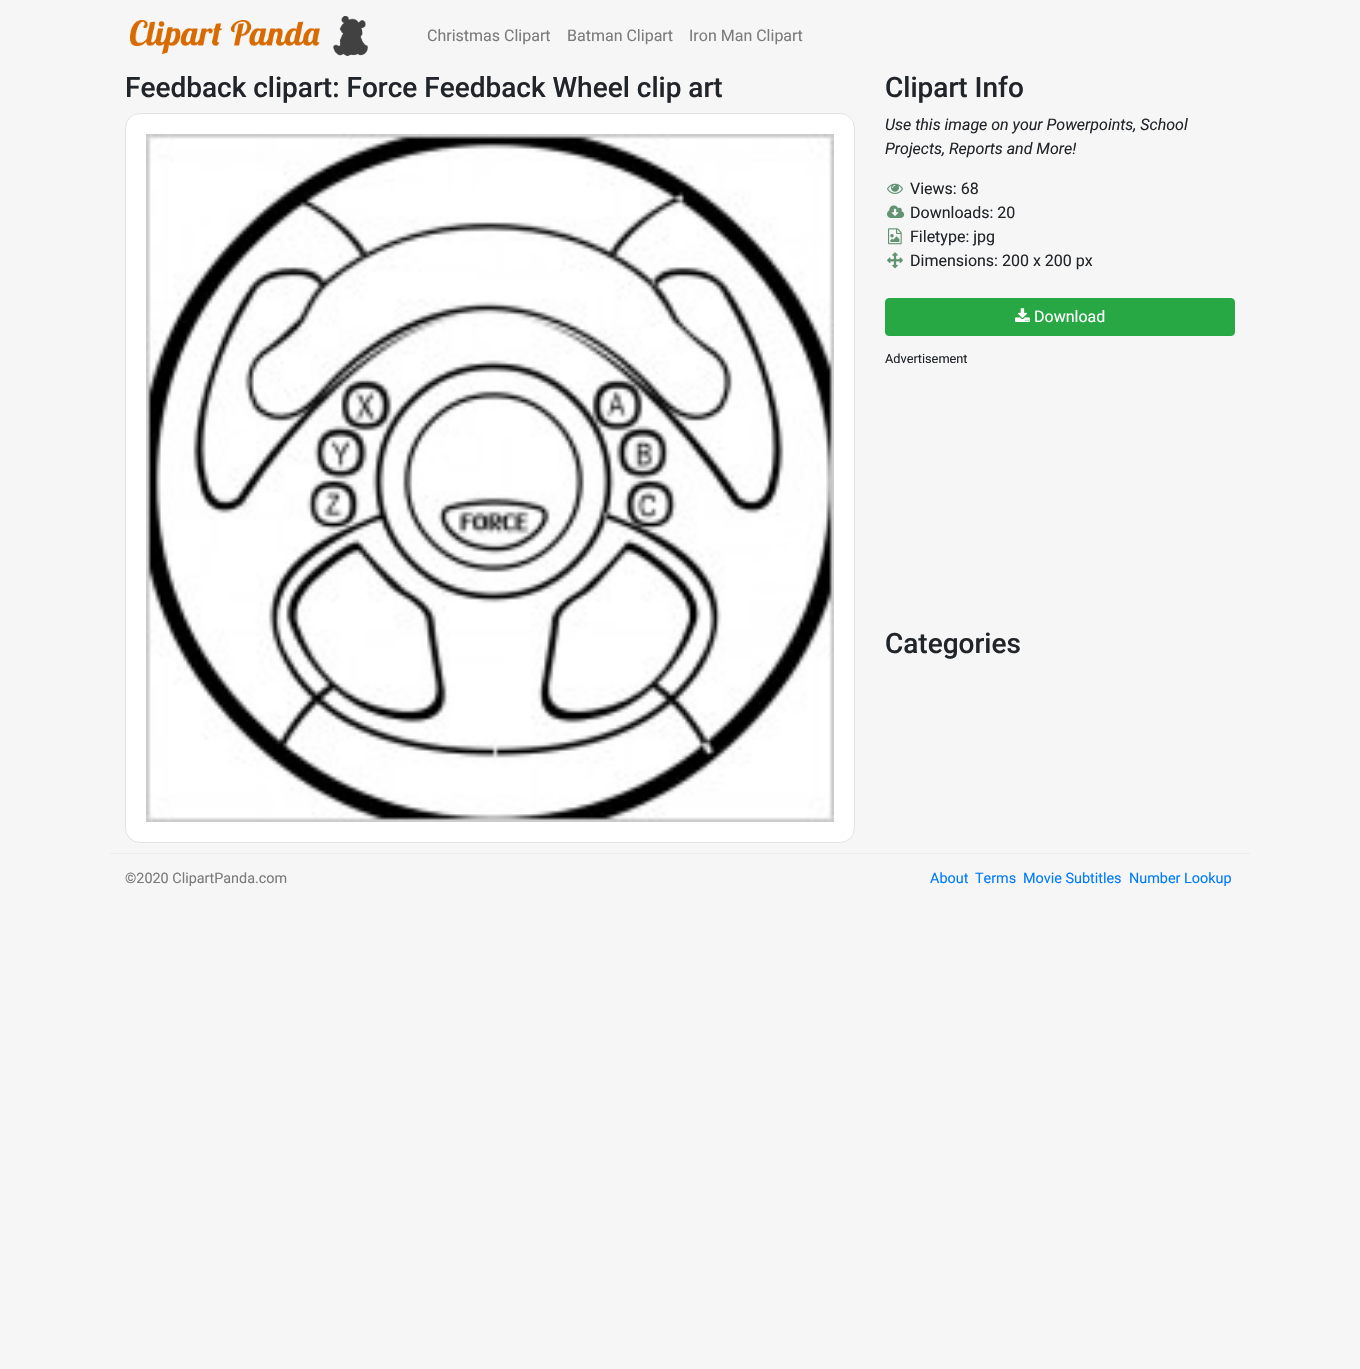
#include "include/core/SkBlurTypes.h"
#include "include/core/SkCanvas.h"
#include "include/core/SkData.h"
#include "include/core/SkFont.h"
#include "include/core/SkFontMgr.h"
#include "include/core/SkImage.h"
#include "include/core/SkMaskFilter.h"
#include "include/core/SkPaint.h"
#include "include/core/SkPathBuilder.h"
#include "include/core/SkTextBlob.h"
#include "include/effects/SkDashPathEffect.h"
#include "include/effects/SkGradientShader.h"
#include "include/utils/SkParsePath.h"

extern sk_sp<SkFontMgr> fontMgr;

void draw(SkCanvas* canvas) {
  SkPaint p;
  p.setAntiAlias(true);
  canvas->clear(SkColorSetRGB(246, 246, 246));
  canvas->drawImageRect(SkImages::DeferredFromEncodedData(SkData::MakeFromFileName("images/1.png")), SkRect::MakeLTRB(130, 16, 369, 56), SkSamplingOptions());
  p.setColor(SK_ColorWHITE);
  canvas->drawRoundRect(SkRect::MakeLTRB(125.5f, 113.5f, 854.5f, 842.5f), 14.5f, 14.5f, p);
  p.setStyle(SkPaint::kStroke_Style);
  p.setStrokeWidth(1);
  p.setColor(SkColorSetRGB(227, 227, 227));
  canvas->drawRoundRect(SkRect::MakeLTRB(125.5f, 113.5f, 854.5f, 842.5f), 14.5f, 14.5f, p);
  canvas->drawImageRect(SkImages::DeferredFromEncodedData(SkData::MakeFromFileName("images/2.png")), SkRect::MakeLTRB(146, 134, 834, 822), SkSamplingOptions());
  canvas->drawImageRect(SkImages::DeferredFromEncodedData(SkData::MakeFromFileName("images/3.png")), SkRect::MakeLTRB(887, 183, 903, 194), SkSamplingOptions());
  canvas->drawImageRect(SkImages::DeferredFromEncodedData(SkData::MakeFromFileName("images/4.png")), SkRect::MakeLTRB(887, 205, 905, 218), SkSamplingOptions());
  canvas->drawImageRect(SkImages::DeferredFromEncodedData(SkData::MakeFromFileName("images/5.png")), SkRect::MakeLTRB(888, 228, 902, 245), SkSamplingOptions());
  canvas->drawImageRect(SkImages::DeferredFromEncodedData(SkData::MakeFromFileName("images/6.png")), SkRect::MakeLTRB(887, 252, 903, 269), SkSamplingOptions());
  p.setStyle(SkPaint::kFill_Style);
  p.setColor(SkColorSetRGB(40, 167, 69));
  canvas->drawRoundRect(SkRect::MakeLTRB(885.5f, 298.5f, 1234.5f, 335.5f), 3.5f, 3.5f, p);
  p.setStyle(SkPaint::kStroke_Style);
  canvas->drawRoundRect(SkRect::MakeLTRB(885.5f, 298.5f, 1234.5f, 335.5f), 3.5f, 3.5f, p);
  canvas->drawImageRect(SkImages::DeferredFromEncodedData(SkData::MakeFromFileName("images/7.png")), SkRect::MakeLTRB(1015, 308, 1030, 322), SkSamplingOptions());
  p.setStyle(SkPaint::kFill_Style);
  p.setColor(SkColorSetRGB(236, 236, 236));
  canvas->drawRect(SkRect::MakeLTRB(110, 853, 1250, 854), p);
  SkFont font1(fontMgr->matchFamilyStyle("Roboto", SkFontStyle::Normal()), 16);
  font1.setSubpixel(true);
  p.setColor(SkColorSetRGB(123, 123, 123));
  canvas->drawString("Christmas Clipart", 427, 41, font1, p);
  canvas->drawString("Batman Clipart", 567, 41, font1, p);
  canvas->drawString("Iron Man Clipart", 689, 41, font1, p);
  SkFont font2(fontMgr->matchFamilyStyle("Roboto", SkFontStyle(500, SkFontStyle::kNormal_Width, SkFontStyle::kUpright_Slant)), 28);
  font2.setSubpixel(true);
  p.setColor(SkColorSetRGB(33, 37, 41));
  canvas->drawString("Feedback clipart: Force Feedback Wheel clip art", 125, 97, font2, p);
  canvas->drawString("Clipart Info", 885, 97, font2, p);
  SkFont font3(fontMgr->matchFamilyStyle("Roboto", SkFontStyle::Italic()), 16);
  font3.setSubpixel(true);
  canvas->drawString("Use this image on your Powerpoints, School", 885, 130, font3, p);
  canvas->drawString("Projects, Reports and More!", 885, 154, font3, p);
  canvas->drawString("Views: 68", 910, 194, font1, p);
  canvas->drawString("Downloads: 20", 910, 218, font1, p);
  canvas->drawString("Filetype: jpg", 910, 242, font1, p);
  canvas->drawString("Dimensions: 200 x 200 px", 910, 266, font1, p);
  p.setColor(SK_ColorWHITE);
  canvas->drawString("Download", 1034, 322, font1, p);
  SkFont font4(fontMgr->matchFamilyStyle("Roboto", SkFontStyle::Normal()), 12.75f);
  font4.setSubpixel(true);
  p.setColor(SkColorSetRGB(33, 37, 41));
  canvas->drawString("Advertisement", 885, 363, font4, p);
  canvas->drawString("Categories", 885, 653, font2, p);
  SkFont font5(fontMgr->matchFamilyStyle("Roboto", SkFontStyle::Normal()), 14.4f);
  font5.setSubpixel(true);
  p.setColor(SkColorSetRGB(123, 123, 123));
  canvas->drawString("©2020 ClipartPanda.com", 125, 883, font5, p);
  p.setColor(SkColorSetRGB(0, 123, 255));
  canvas->drawString("About", 930, 883, font5, p);
  canvas->drawString("Terms", 975, 883, font5, p);
  canvas->drawString("Movie Subtitles", 1023, 883, font5, p);
  canvas->drawString("Number Lookup", 1129, 883, font5, p);
}
